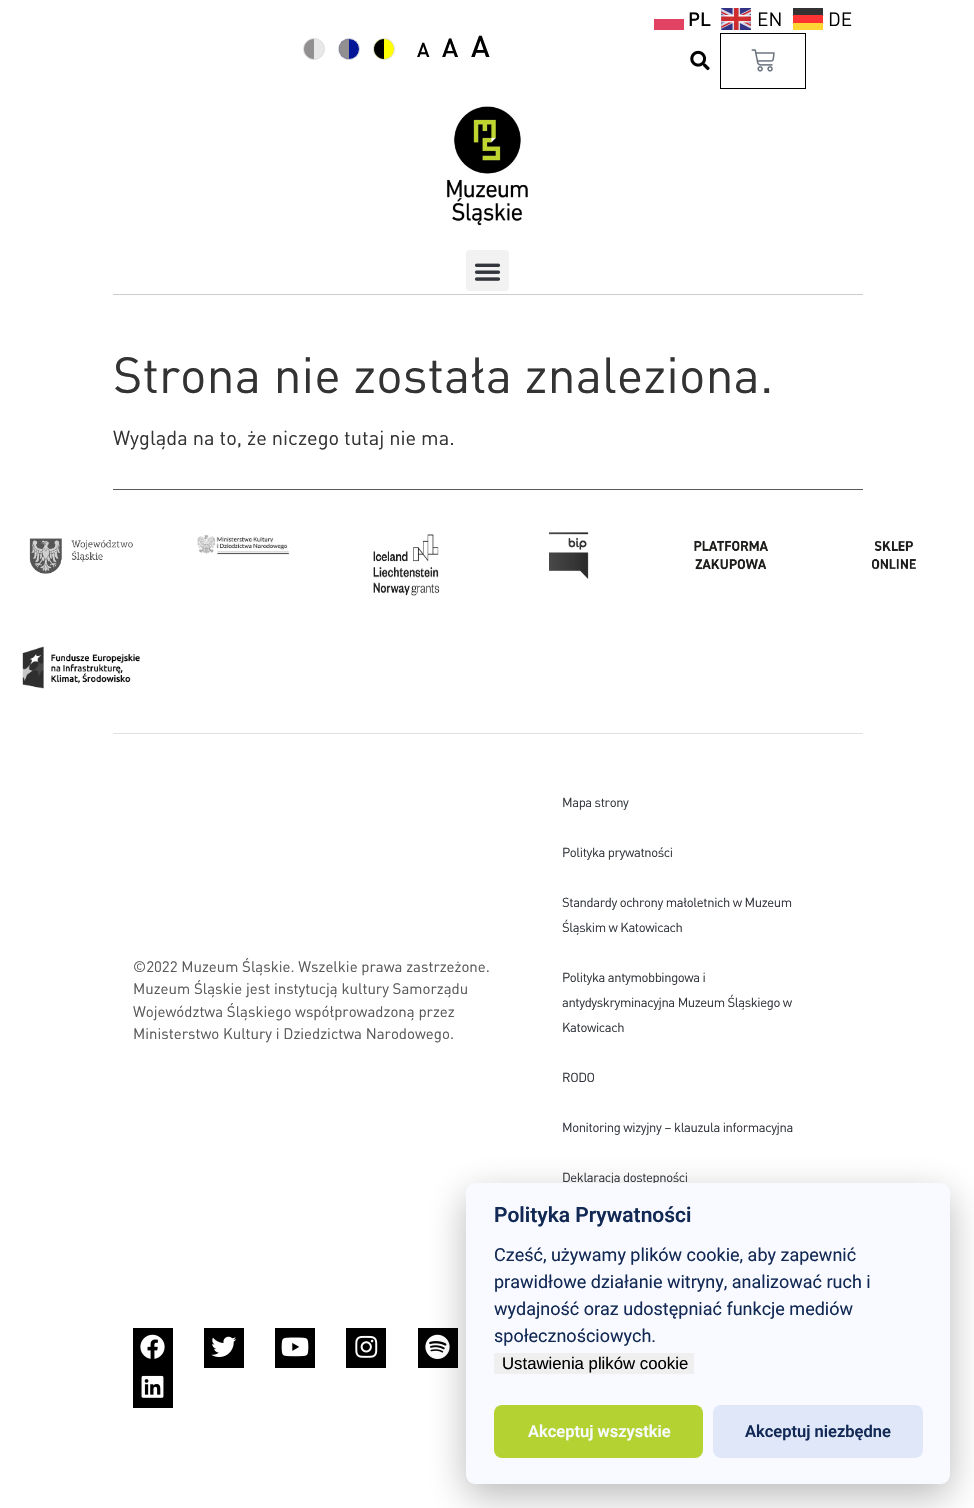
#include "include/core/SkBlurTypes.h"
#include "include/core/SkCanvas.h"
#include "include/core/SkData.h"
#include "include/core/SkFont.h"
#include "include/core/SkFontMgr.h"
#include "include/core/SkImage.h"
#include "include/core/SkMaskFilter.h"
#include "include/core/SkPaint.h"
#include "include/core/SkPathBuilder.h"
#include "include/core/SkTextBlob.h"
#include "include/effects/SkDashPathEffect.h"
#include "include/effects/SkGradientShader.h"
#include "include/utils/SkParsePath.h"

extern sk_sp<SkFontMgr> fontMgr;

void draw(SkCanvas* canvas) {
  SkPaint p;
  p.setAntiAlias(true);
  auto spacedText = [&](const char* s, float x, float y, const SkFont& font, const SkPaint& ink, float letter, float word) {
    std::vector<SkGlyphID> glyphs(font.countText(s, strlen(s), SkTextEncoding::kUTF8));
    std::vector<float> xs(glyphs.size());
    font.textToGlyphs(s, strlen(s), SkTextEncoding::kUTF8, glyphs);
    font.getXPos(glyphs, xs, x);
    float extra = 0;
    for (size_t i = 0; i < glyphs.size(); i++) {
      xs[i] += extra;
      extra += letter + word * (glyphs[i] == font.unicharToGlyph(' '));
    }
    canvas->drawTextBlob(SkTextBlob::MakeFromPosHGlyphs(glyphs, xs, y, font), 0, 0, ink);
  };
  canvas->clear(SK_ColorWHITE);
  p.setColor(SkColorSetRGB(227, 67, 99));
  canvas->drawRect(SkRect::MakeLTRB(654, 19, 684, 30), p);
  canvas->drawImageRect(SkImages::DeferredFromEncodedData(SkData::MakeFromFileName("images/1.png")), SkRect::MakeLTRB(721, 8, 751, 30), SkSamplingOptions());
  p.setColor(SkColorSetRGB(255, 214, 51));
  canvas->drawRect(SkRect::MakeLTRB(793, 23, 823, 30), p);
  p.setColor(SkColorSetRGB(51, 51, 51));
  canvas->drawRect(SkRect::MakeLTRB(793, 8, 823, 15), p);
  p.setColor(SkColorSetRGB(255, 51, 51));
  canvas->drawRect(SkRect::MakeLTRB(793, 15, 823, 23), p);
  canvas->drawImageRect(SkImages::DeferredFromEncodedData(SkData::MakeFromFileName("images/2.png")), SkRect::MakeLTRB(690, 50, 710, 71), SkSamplingOptions());
  p.setStyle(SkPaint::kStroke_Style);
  p.setStrokeWidth(1);
  p.setColor(SK_ColorBLACK);
  canvas->drawRect(SkRect::MakeLTRB(720.5f, 33.5f, 805.5f, 88.5f), p);
  canvas->drawImageRect(SkImages::DeferredFromEncodedData(SkData::MakeFromFileName("images/3.png")), SkRect::MakeLTRB(751, 49, 775, 72), SkSamplingOptions());
  p.setStyle(SkPaint::kFill_Style);
  p.setColor(SkColorSetRGB(232, 232, 232));
  canvas->drawCircle(314, 49, 10.5f, p);
  p.setStyle(SkPaint::kStroke_Style);
  p.setColor(SkColorSetRGB(221, 221, 221));
  canvas->drawCircle(314, 49, 10.5f, p);
  p.setStyle(SkPaint::kFill_Style);
  p.setColor(SkColorSetRGB(145, 143, 143));
  canvas->drawPath(SkPathBuilder().moveTo(314, 39).lineTo(314, 59).cubicTo(308.5f, 59, 304, 54.5f, 304, 49).cubicTo(304, 43.5f, 308.5f, 39, 314, 39).close().detach(), p);
  p.setColor(SkColorSetRGB(3, 22, 152));
  canvas->drawCircle(349, 49, 10.5f, p);
  p.setStyle(SkPaint::kStroke_Style);
  p.setColor(SkColorSetRGB(221, 221, 221));
  canvas->drawCircle(349, 49, 10.5f, p);
  p.setStyle(SkPaint::kFill_Style);
  p.setColor(SkColorSetRGB(145, 143, 143));
  canvas->drawPath(SkPathBuilder().moveTo(349, 39).lineTo(349, 59).cubicTo(343.5f, 59, 339, 54.5f, 339, 49).cubicTo(339, 43.5f, 343.5f, 39, 349, 39).close().detach(), p);
  p.setColor(SkColorSetRGB(255, 255, 0));
  canvas->drawCircle(384, 49, 10.5f, p);
  p.setStyle(SkPaint::kStroke_Style);
  p.setColor(SkColorSetRGB(221, 221, 221));
  canvas->drawCircle(384, 49, 10.5f, p);
  p.setStyle(SkPaint::kFill_Style);
  p.setColor(SK_ColorBLACK);
  canvas->drawPath(SkPathBuilder().moveTo(384, 39).lineTo(384, 59).cubicTo(378.5f, 59, 374, 54.5f, 374, 49).cubicTo(374, 43.5f, 378.5f, 39, 384, 39).close().detach(), p);
  canvas->drawImageRect(SkImages::DeferredFromEncodedData(SkData::MakeFromFileName("images/4.png")), SkRect::MakeLTRB(446, 106, 528, 226), SkSamplingOptions());
  p.setColor(SkColorSetRGB(242, 242, 242));
  canvas->drawRoundRect(SkRect::MakeLTRB(466, 250, 509, 291), 4, 4, p);
  canvas->drawImageRect(SkImages::DeferredFromEncodedData(SkData::MakeFromFileName("images/5.png")), SkRect::MakeLTRB(474, 263, 501, 281), SkSamplingOptions());
  p.setColor(SkColorSetRGB(204, 204, 204));
  canvas->drawRect(SkRect::MakeLTRB(113, 294, 863, 295), p);
  p.setColor(SkColorSetRGB(89, 89, 89));
  canvas->drawRect(SkRect::MakeLTRB(113, 489, 863, 490), p);
  canvas->drawImageRect(SkImages::DeferredFromEncodedData(SkData::MakeFromFileName("images/6.png")), SkRect::MakeLTRB(29, 538, 133, 574), SkSamplingOptions());
  canvas->drawImageRect(SkImages::DeferredFromEncodedData(SkData::MakeFromFileName("images/7.png")), SkRect::MakeLTRB(197, 534, 290, 555), SkSamplingOptions());
  canvas->drawImageRect(SkImages::DeferredFromEncodedData(SkData::MakeFromFileName("images/8.png")), SkRect::MakeLTRB(373, 534, 440, 596), SkSamplingOptions());
  canvas->drawImageRect(SkImages::DeferredFromEncodedData(SkData::MakeFromFileName("images/9.png")), SkRect::MakeLTRB(549, 532, 589, 579), SkSamplingOptions());
  canvas->drawImageRect(SkImages::DeferredFromEncodedData(SkData::MakeFromFileName("images/10.png")), SkRect::MakeLTRB(694, 540, 769, 570), SkSamplingOptions());
  canvas->drawImageRect(SkImages::DeferredFromEncodedData(SkData::MakeFromFileName("images/11.png")), SkRect::MakeLTRB(872, 541, 916, 570), SkSamplingOptions());
  canvas->drawImageRect(SkImages::DeferredFromEncodedData(SkData::MakeFromFileName("images/12.png")), SkRect::MakeLTRB(22, 646, 141, 689), SkSamplingOptions());
  p.setColor(SkColorSetRGB(224, 224, 224));
  canvas->drawRect(SkRect::MakeLTRB(113, 733, 863, 734), p);
  p.setColor(SK_ColorBLACK);
  canvas->drawRect(SkRect::MakeLTRB(133, 1328, 173, 1408), p);
  canvas->drawImageRect(SkImages::DeferredFromEncodedData(SkData::MakeFromFileName("images/13.png")), SkRect::MakeLTRB(140, 1334, 165, 1359), SkSamplingOptions());
  canvas->drawRect(SkRect::MakeLTRB(204, 1328, 244, 1368), p);
  canvas->drawImageRect(SkImages::DeferredFromEncodedData(SkData::MakeFromFileName("images/14.png")), SkRect::MakeLTRB(211, 1336, 237, 1357), SkSamplingOptions());
  canvas->drawRect(SkRect::MakeLTRB(275, 1328, 315, 1368), p);
  canvas->drawImageRect(SkImages::DeferredFromEncodedData(SkData::MakeFromFileName("images/15.png")), SkRect::MakeLTRB(281, 1337, 309, 1357), SkSamplingOptions());
  canvas->drawRect(SkRect::MakeLTRB(346, 1328, 386, 1368), p);
  canvas->drawImageRect(SkImages::DeferredFromEncodedData(SkData::MakeFromFileName("images/16.png")), SkRect::MakeLTRB(355, 1335, 378, 1358), SkSamplingOptions());
  canvas->drawRect(SkRect::MakeLTRB(418, 1328, 458, 1368), p);
  canvas->drawImageRect(SkImages::DeferredFromEncodedData(SkData::MakeFromFileName("images/17.png")), SkRect::MakeLTRB(425, 1334, 450, 1359), SkSamplingOptions());
  canvas->drawImageRect(SkImages::DeferredFromEncodedData(SkData::MakeFromFileName("images/18.png")), SkRect::MakeLTRB(141, 1375, 164, 1398), SkSamplingOptions());
  p.setColor(SkColorSetARGB(71, 2, 2, 3));
  p.setMaskFilter(SkMaskFilter::MakeBlur(kNormal_SkBlurStyle, 19));
  canvas->drawRoundRect(SkRect::MakeLTRB(466, 1195, 950, 1496), 9, 9, p);
  p.setMaskFilter(nullptr);
  SkFont font1(fontMgr->matchFamilyStyle("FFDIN", SkFontStyle(500, SkFontStyle::kNormal_Width, SkFontStyle::kUpright_Slant)), 19);
  font1.setSubpixel(true);
  p.setColor(SK_ColorBLACK);
  canvas->drawString("PL", 688, 26, font1, p);
  SkFont font2(fontMgr->matchFamilyStyle("FFDIN", SkFontStyle::Normal()), 19);
  font2.setSubpixel(true);
  canvas->drawString("EN", 757, 26, font2, p);
  canvas->drawString("DE", 828, 26, font2, p);
  SkFont font3(fontMgr->matchFamilyStyle("FFDIN", SkFontStyle(500, SkFontStyle::kNormal_Width, SkFontStyle::kUpright_Slant)), 20);
  font3.setSubpixel(true);
  canvas->drawString("A", 417, 57, font3, p);
  SkFont font4(fontMgr->matchFamilyStyle("FFDIN", SkFontStyle(500, SkFontStyle::kNormal_Width, SkFontStyle::kUpright_Slant)), 26);
  font4.setSubpixel(true);
  canvas->drawString("A", 442, 57, font4, p);
  SkFont font5(fontMgr->matchFamilyStyle("FFDIN", SkFontStyle(500, SkFontStyle::kNormal_Width, SkFontStyle::kUpright_Slant)), 30);
  font5.setSubpixel(true);
  canvas->drawString("A", 471, 57, font5, p);
  SkFont font6(fontMgr->matchFamilyStyle("FFDIN", SkFontStyle::Normal()), 50);
  font6.setSubpixel(true);
  p.setColor(SkColorSetRGB(51, 51, 51));
  canvas->drawString("Strona nie została znaleziona.", 113, 393, font6, p);
  SkFont font7(fontMgr->matchFamilyStyle("FFDIN", SkFontStyle::Normal()), 20);
  font7.setSubpixel(true);
  canvas->drawString("Wygląda na to, że niczego tutaj nie ma.", 113, 445, font7, p);
  SkFont font8(fontMgr->matchFamilyStyle("FFDIN", SkFontStyle::Normal()), 15);
  font8.setSubpixel(true);
  p.setColor(SkColorSetRGB(89, 89, 89));
  canvas->drawString("©2022 Muzeum Śląskie. Wszelkie prawa zastrzeżone.", 133, 972, font8, p);
  canvas->drawString("Muzeum Śląskie jest instytucją kultury Samorządu", 133, 994, font8, p);
  canvas->drawString("Województwa Śląskiego współprowadzoną przez", 133, 1017, font8, p);
  canvas->drawString("Ministerstwo Kultury i Dziedzictwa Narodowego.", 133, 1039, font8, p);
  SkFont font9(fontMgr->matchFamilyStyle("FFDIN", SkFontStyle::Normal()), 13);
  font9.setSubpixel(true);
  p.setColor(SkColorSetRGB(51, 55, 61));
  spacedText("Mapa strony", 562, 807, font9, p, -0.4f, 0);
  spacedText("Polityka prywatności", 562, 857, font9, p, -0.4f, 0);
  spacedText("Standardy ochrony małoletnich w Muzeum", 562, 907, font9, p, -0.4f, 0);
  spacedText("Śląskim w Katowicach", 562, 932, font9, p, -0.4f, 0);
  spacedText("Polityka antymobbingowa i", 562, 982, font9, p, -0.4f, 0);
  spacedText("antydyskryminacyjna Muzeum Śląskiego w", 562, 1007, font9, p, -0.4f, 0);
  spacedText("Katowicach", 562, 1032, font9, p, -0.4f, 0);
  spacedText("RODO", 562, 1082, font9, p, -0.4f, 0);
  spacedText("Monitoring wizyjny – klauzula informacyjna", 562, 1132, font9, p, -0.4f, 0);
  spacedText("Deklaracja dostępności", 562, 1182, font9, p, -0.4f, 0);
  p.setColor(SkColorSetRGB(249, 250, 255));
  canvas->drawRoundRect(SkRect::MakeLTRB(466, 1183, 950, 1484), 9, 9, p);
  SkFont font10(fontMgr->matchFamilyStyle("Roboto", SkFontStyle(600, SkFontStyle::kNormal_Width, SkFontStyle::kUpright_Slant)), 21);
  font10.setSubpixel(true);
  p.setColor(SkColorSetRGB(17, 41, 84));
  canvas->drawString("Polityka Prywatności", 494, 1222, font10, p);
  SkFont font11(fontMgr->matchFamilyStyle("Roboto", SkFontStyle::Normal()), 18);
  font11.setSubpixel(true);
  canvas->drawString("Cześć, używamy plików cookie, aby zapewnić", 494, 1261, font11, p);
  canvas->drawString("prawidłowe działanie witryny, analizować ruch i", 494, 1288, font11, p);
  canvas->drawString("wydajność oraz udostępniać funkcje mediów", 494, 1315, font11, p);
  canvas->drawString("społecznościowych.", 494, 1342, font11, p);
  p.setColor(SkColorSetRGB(239, 239, 239));
  canvas->drawRect(SkRect::MakeLTRB(494, 1353, 694, 1374), p);
  SkFont font12(fontMgr->matchFamilyStyle("Liberation Sans", SkFontStyle::Normal()), 16.75f);
  font12.setSubpixel(true);
  p.setColor(SK_ColorBLACK);
  canvas->drawString("Ustawienia plików cookie", 502, 1369, font12, p);
  p.setColor(SkColorSetRGB(180, 211, 51));
  canvas->drawRoundRect(SkRect::MakeLTRB(494, 1405, 703, 1458), 8, 8, p);
  SkFont font13(fontMgr->matchFamilyStyle("Roboto", SkFontStyle(600, SkFontStyle::kNormal_Width, SkFontStyle::kUpright_Slant)), 16.5f);
  font13.setSubpixel(true);
  p.setColor(SkColorSetRGB(249, 250, 255));
  canvas->drawString("Akceptuj wszystkie", 528, 1437, font13, p);
  p.setColor(SkColorSetRGB(223, 231, 249));
  canvas->drawRoundRect(SkRect::MakeLTRB(713, 1405, 923, 1458), 8, 8, p);
  p.setColor(SkColorSetRGB(17, 41, 84));
  canvas->drawString("Akceptuj niezbędne", 745, 1437, font13, p);
}
